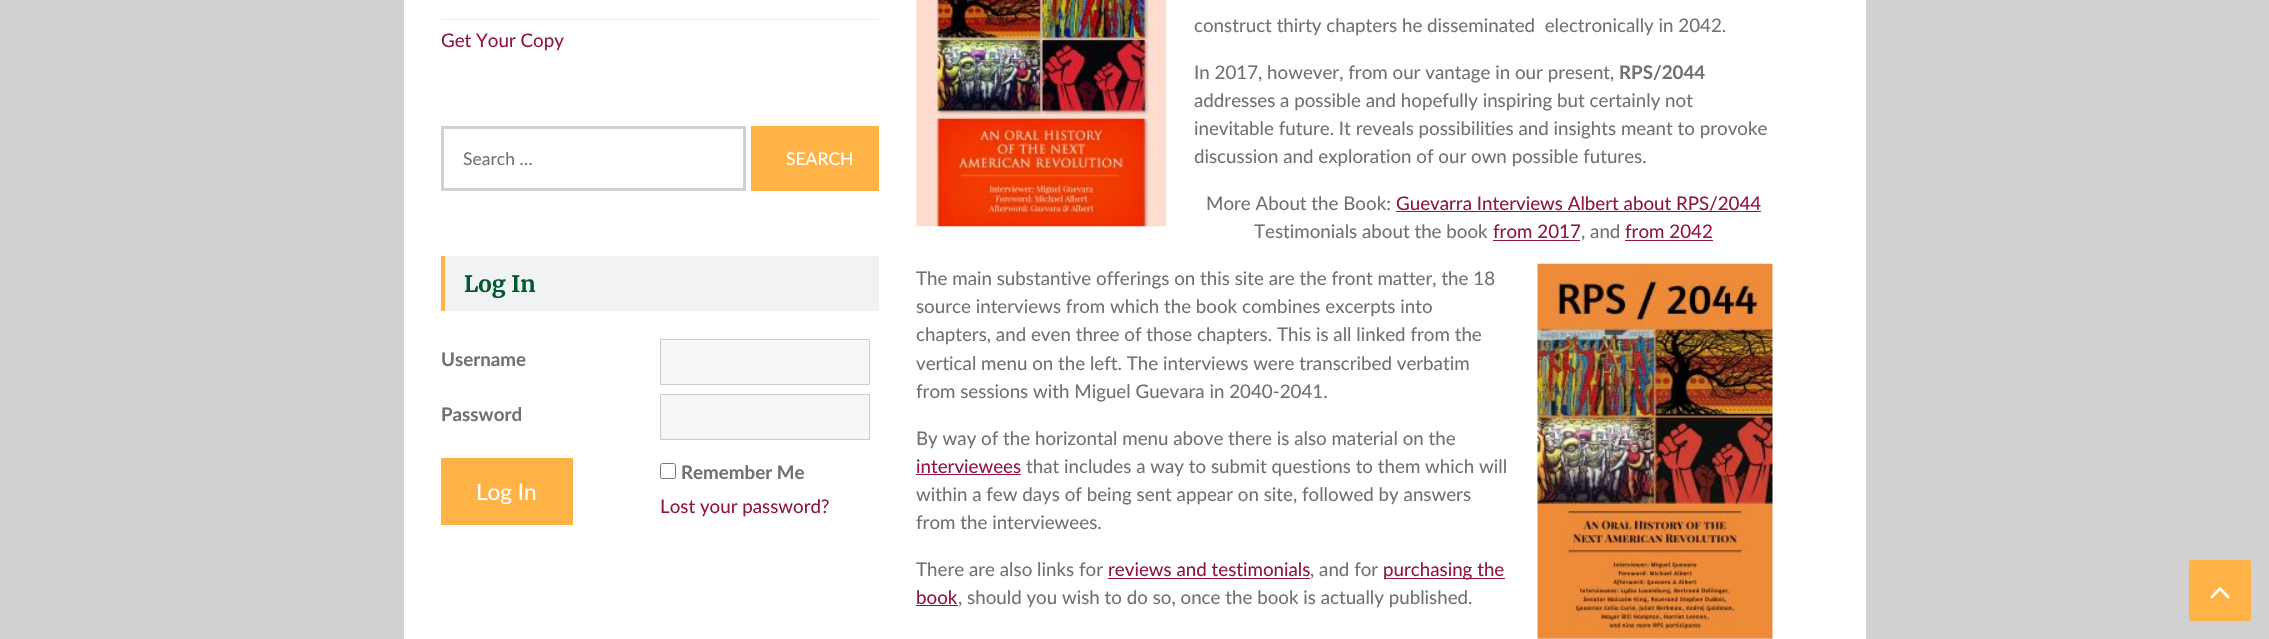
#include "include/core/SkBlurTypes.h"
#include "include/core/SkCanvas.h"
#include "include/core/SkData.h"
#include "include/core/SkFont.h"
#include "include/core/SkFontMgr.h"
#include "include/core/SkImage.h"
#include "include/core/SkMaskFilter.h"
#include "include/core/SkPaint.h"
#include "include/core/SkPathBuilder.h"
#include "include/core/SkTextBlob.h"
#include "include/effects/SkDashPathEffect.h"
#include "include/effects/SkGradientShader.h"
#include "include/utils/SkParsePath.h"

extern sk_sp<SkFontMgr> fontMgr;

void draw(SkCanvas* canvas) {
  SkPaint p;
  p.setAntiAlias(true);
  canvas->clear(SkColorSetRGB(209, 209, 209));
  p.setColor(SK_ColorWHITE);
  canvas->drawRect(SkRect::MakeLTRB(404, 0, 1866, 639), p);
  p.setColor(SkColorSetRGB(237, 237, 237));
  canvas->drawRect(SkRect::MakeLTRB(441, 19, 879, 20), p);
  p.setStyle(SkPaint::kStroke_Style);
  p.setStrokeWidth(3);
  p.setColor(SkColorSetRGB(209, 209, 209));
  canvas->drawRect(SkRect::MakeLTRB(442.5f, 127.5f, 744.5f, 189.5f), p);
  p.setStyle(SkPaint::kFill_Style);
  p.setColor(SkColorSetRGB(255, 178, 70));
  canvas->drawRect(SkRect::MakeLTRB(751, 126, 879, 191), p);
  p.setColor(SkColorSetRGB(241, 242, 243));
  canvas->drawRect(SkRect::MakeLTRB(445, 256, 879, 311), p);
  p.setColor(SkColorSetRGB(255, 178, 70));
  canvas->drawRect(SkRect::MakeLTRB(441, 256, 445, 311), p);
  p.setColor(SkColorSetRGB(247, 247, 247));
  canvas->drawRect(SkRect::MakeLTRB(660.5f, 339.5f, 869.5f, 384.5f), p);
  p.setStyle(SkPaint::kStroke_Style);
  p.setStrokeWidth(1);
  p.setColor(SkColorSetRGB(204, 204, 204));
  canvas->drawRect(SkRect::MakeLTRB(660.5f, 339.5f, 869.5f, 384.5f), p);
  p.setStyle(SkPaint::kFill_Style);
  p.setColor(SkColorSetRGB(247, 247, 247));
  canvas->drawRect(SkRect::MakeLTRB(660.5f, 394.5f, 869.5f, 439.5f), p);
  p.setStyle(SkPaint::kStroke_Style);
  p.setColor(SkColorSetRGB(204, 204, 204));
  canvas->drawRect(SkRect::MakeLTRB(660.5f, 394.5f, 869.5f, 439.5f), p);
  p.setStyle(SkPaint::kFill_Style);
  p.setColor(SkColorSetRGB(255, 178, 70));
  canvas->drawRect(SkRect::MakeLTRB(441, 458, 573, 525), p);
  p.setStyle(SkPaint::kStroke_Style);
  p.setColor(SkColorSetRGB(118, 118, 118));
  canvas->drawRoundRect(SkRect::MakeLTRB(660.5f, 463.5f, 675.5f, 478.5f), 2, 2, p);
  canvas->drawImageRect(SkImages::DeferredFromEncodedData(SkData::MakeFromFileName("images/1.png")), SkRect::MakeLTRB(916, 0, 1167, 227), SkSamplingOptions());
  p.setStyle(SkPaint::kFill_Style);
  p.setColor(SkColorSetRGB(145, 21, 71));
  canvas->drawRect(SkRect::MakeLTRB(1396, 211, 1761, 212), p);
  canvas->drawRect(SkRect::MakeLTRB(1493, 240, 1580, 241), p);
  canvas->drawRect(SkRect::MakeLTRB(1625, 240, 1713, 241), p);
  canvas->drawImageRect(SkImages::DeferredFromEncodedData(SkData::MakeFromFileName("images/2.png")), SkRect::MakeLTRB(1537, 263, 1773, 639), SkSamplingOptions());
  canvas->drawRect(SkRect::MakeLTRB(916, 474, 1021, 475), p);
  canvas->drawRect(SkRect::MakeLTRB(1108, 578, 1310, 579), p);
  canvas->drawRect(SkRect::MakeLTRB(1384, 578, 1505, 579), p);
  canvas->drawRect(SkRect::MakeLTRB(916, 605, 958, 606), p);
  p.setColor(SkColorSetRGB(255, 178, 70));
  canvas->drawRoundRect(SkRect::MakeLTRB(2189, 560, 2251, 621), 2.5f, 2.5f, p);
  canvas->drawImageRect(SkImages::DeferredFromEncodedData(SkData::MakeFromFileName("images/3.png")), SkRect::MakeLTRB(2210, 587, 2230, 599), SkSamplingOptions());
  SkFont font1(fontMgr->matchFamilyStyle("Lato", SkFontStyle::Normal()), 18.75f);
  font1.setSubpixel(true);
  p.setColor(SkColorSetRGB(145, 21, 71));
  canvas->drawString("Get Your Copy", 441, 47, font1, p);
  SkFont font2(fontMgr->matchFamilyStyle("Lato", SkFontStyle::Normal()), 17.5f);
  font2.setSubpixel(true);
  p.setColor(SkColorSetRGB(113, 113, 113));
  canvas->drawString("Search …", 463, 165, font2, p);
  p.setColor(SK_ColorWHITE);
  canvas->drawString("SEARCH", 786, 165, font2, p);
  SkFont font3(fontMgr->matchFamilyStyle("Merriweather", SkFontStyle::Bold()), 22.5f);
  font3.setSubpixel(true);
  p.setColor(SkColorSetRGB(0, 89, 47));
  canvas->drawString("Log In", 464, 292, font3, p);
  SkFont font4(fontMgr->matchFamilyStyle("Lato", SkFontStyle::Bold()), 18.75f);
  font4.setSubpixel(true);
  p.setColor(SkColorSetRGB(113, 113, 113));
  canvas->drawString("Username", 441, 366, font4, p);
  canvas->drawString("Password", 441, 421, font4, p);
  SkFont font5(fontMgr->matchFamilyStyle("Lato", SkFontStyle::Normal()), 22.5f);
  font5.setSubpixel(true);
  p.setColor(SK_ColorWHITE);
  canvas->drawString("Log In", 476, 500, font5, p);
  p.setColor(SkColorSetRGB(113, 113, 113));
  canvas->drawString("Remember Me", 681, 479, font4, p);
  p.setColor(SkColorSetRGB(145, 21, 71));
  canvas->drawString("Lost your password?", 660, 513, font1, p);
  p.setColor(SkColorSetRGB(113, 113, 113));
  canvas->drawString("construct thirty chapters he disseminated  electronically in 2042.", 1194, 32, font1, p);
  canvas->drawString("In 2017, however, from our vantage in our present,", 1194, 79, font1, p);
  canvas->drawString("RPS/2044", 1619, 79, font4, p);
  canvas->drawString("addresses a possible and hopefully inspiring but certainly not", 1194, 107, font1, p);
  canvas->drawString("inevitable future. It reveals possibilities and insights meant to provoke", 1194, 135, font1, p);
  canvas->drawString("discussion and exploration of our own possible futures.", 1194, 163, font1, p);
  canvas->drawString("More About the Book:", 1206, 210, font1, p);
  p.setColor(SkColorSetRGB(145, 21, 71));
  canvas->drawString("Guevarra Interviews Albert about RPS/2044", 1396, 210, font1, p);
  p.setColor(SkColorSetRGB(113, 113, 113));
  canvas->drawString("Testimonials about the book", 1254, 238, font1, p);
  p.setColor(SkColorSetRGB(145, 21, 71));
  canvas->drawString("from 2017", 1493, 238, font1, p);
  p.setColor(SkColorSetRGB(113, 113, 113));
  canvas->drawString(", and", 1581, 238, font1, p);
  p.setColor(SkColorSetRGB(145, 21, 71));
  canvas->drawString("from 2042", 1625, 238, font1, p);
  p.setColor(SkColorSetRGB(113, 113, 113));
  canvas->drawString("The main substantive offerings on this site are the front matter, the 18", 916, 285, font1, p);
  canvas->drawString("source interviews from which the book combines excerpts into", 916, 313, font1, p);
  canvas->drawString("chapters, and even three of those chapters. This is all linked from the", 916, 341, font1, p);
  canvas->drawString("vertical menu on the left. The interviews were transcribed verbatim", 916, 370, font1, p);
  canvas->drawString("from sessions with Miguel Guevara in 2040-2041.", 916, 398, font1, p);
  canvas->drawString("By way of the horizontal menu above there is also material on the", 916, 445, font1, p);
  p.setColor(SkColorSetRGB(145, 21, 71));
  canvas->drawString("interviewees", 916, 473, font1, p);
  p.setColor(SkColorSetRGB(113, 113, 113));
  canvas->drawString("that includes a way to submit questions to them which will", 1026, 473, font1, p);
  canvas->drawString("within a few days of being sent appear on site, followed by answers", 916, 501, font1, p);
  canvas->drawString("from the interviewees.", 916, 529, font1, p);
  canvas->drawString("There are also links for", 916, 576, font1, p);
  p.setColor(SkColorSetRGB(145, 21, 71));
  canvas->drawString("reviews and testimonials", 1108, 576, font1, p);
  p.setColor(SkColorSetRGB(113, 113, 113));
  canvas->drawString(", and for", 1310, 576, font1, p);
  p.setColor(SkColorSetRGB(145, 21, 71));
  canvas->drawString("purchasing the", 1383, 576, font1, p);
  canvas->drawString("book", 916, 604, font1, p);
  p.setColor(SkColorSetRGB(113, 113, 113));
  canvas->drawString(", should you wish to do so, once the book is actually published.", 958, 604, font1, p);
}
